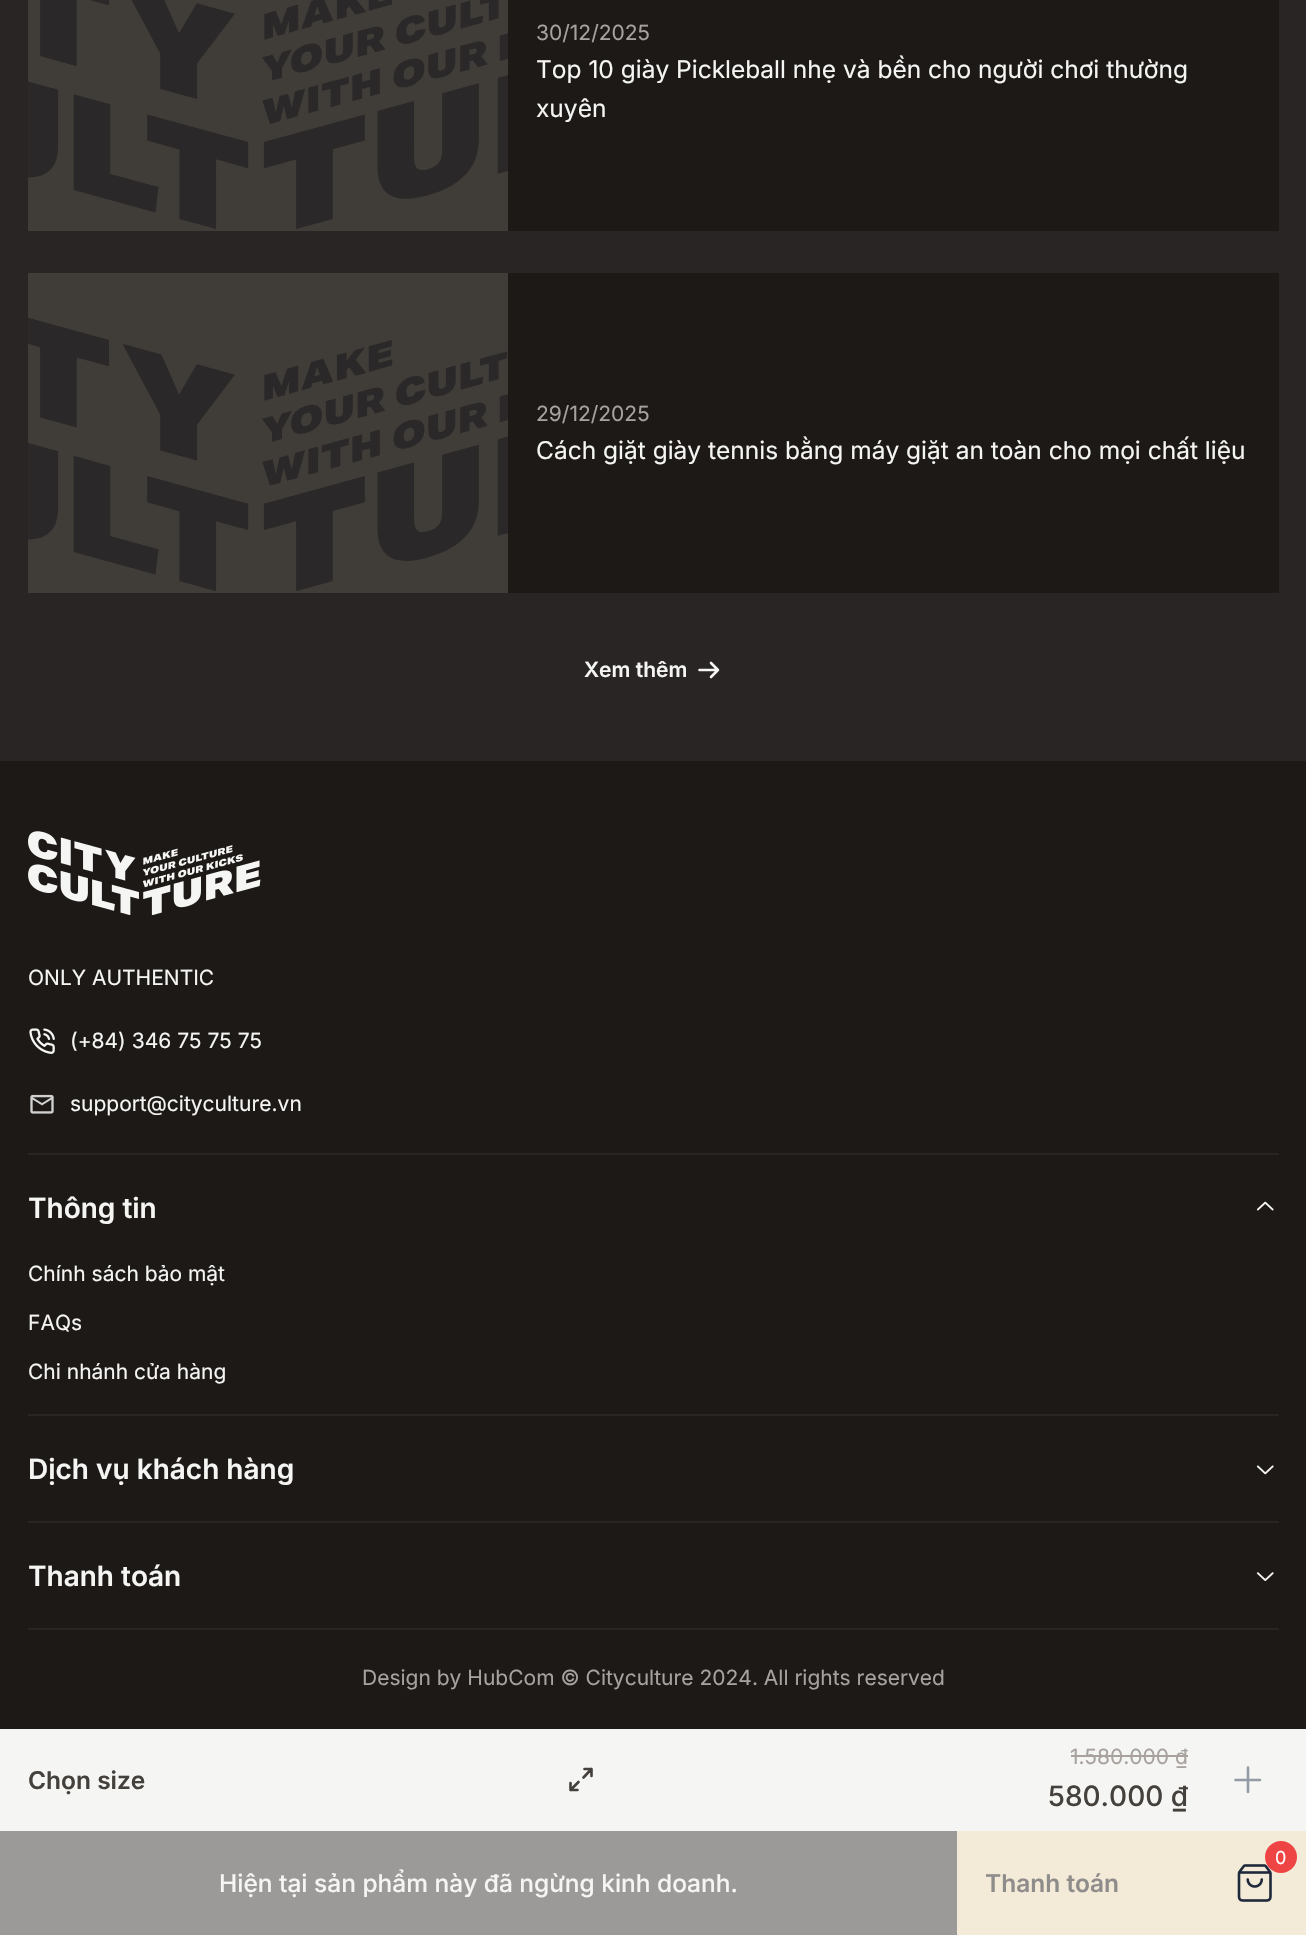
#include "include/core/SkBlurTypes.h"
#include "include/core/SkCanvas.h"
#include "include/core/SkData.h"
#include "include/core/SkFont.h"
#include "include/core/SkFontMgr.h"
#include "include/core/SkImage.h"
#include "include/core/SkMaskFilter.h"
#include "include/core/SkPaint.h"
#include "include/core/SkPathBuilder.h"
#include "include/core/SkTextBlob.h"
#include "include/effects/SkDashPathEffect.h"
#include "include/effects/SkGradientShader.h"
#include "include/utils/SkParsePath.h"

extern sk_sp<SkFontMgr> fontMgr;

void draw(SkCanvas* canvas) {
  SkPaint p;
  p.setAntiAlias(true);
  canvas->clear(SkColorSetRGB(28, 25, 23));
  p.setColor(SkColorSetRGB(41, 37, 36));
  canvas->drawRect(SkRect::MakeLTRB(0, 0, 1306, 761), p);
  p.setColor(SkColorSetRGB(64, 60, 56));
  canvas->drawRect(SkRect::MakeLTRB(28, 0, 508, 231), p);
  canvas->drawImageRect(SkImages::DeferredFromEncodedData(SkData::MakeFromFileName("images/1.png")), SkRect::MakeLTRB(28, 0, 508, 229), SkSamplingOptions());
  p.setColor(SkColorSetRGB(28, 25, 23));
  canvas->drawRect(SkRect::MakeLTRB(508, 0, 1279, 231), p);
  p.setColor(SkColorSetRGB(64, 60, 56));
  canvas->drawRect(SkRect::MakeLTRB(28, 273, 508, 593), p);
  canvas->drawImageRect(SkImages::DeferredFromEncodedData(SkData::MakeFromFileName("images/2.png")), SkRect::MakeLTRB(28, 318, 508, 591), SkSamplingOptions());
  p.setColor(SkColorSetRGB(28, 25, 23));
  canvas->drawRect(SkRect::MakeLTRB(508, 273, 1279, 593), p);
  p.setStyle(SkPaint::kStroke_Style);
  p.setStrokeWidth(2.6f);
  p.setStrokeCap(SkPaint::kRound_Cap);
  p.setStrokeJoin(SkPaint::kRound_Join);
  p.setColor(SkColorSetRGB(245, 245, 244));
  canvas->drawPath(SkPathBuilder().moveTo(699.5f, 670).lineTo(718, 670).moveTo(718, 670).lineTo(711, 663).moveTo(718, 670).lineTo(711, 677).detach(), p);
  p.setStyle(SkPaint::kFill_Style);
  canvas->drawRect(SkRect::MakeLTRB(0, 1729, 1306, 1831), p);
  p.setStyle(SkPaint::kStroke_Style);
  p.setColor(SkColorSetRGB(68, 64, 60));
  canvas->drawPath(SkPathBuilder().moveTo(583.5f, 1777.5f).lineTo(591.5f, 1769).moveTo(591.5f, 1769).lineTo(584.5f, 1769).moveTo(591.5f, 1769).lineTo(591.5f, 1776).moveTo(578.5f, 1782).lineTo(570.5f, 1790).moveTo(570.5f, 1790).lineTo(577.5f, 1790).moveTo(570.5f, 1790).lineTo(570.5f, 1783).detach(), p);
  p.setStyle(SkPaint::kFill_Style);
  p.setColor(SkColorSetRGB(168, 162, 158));
  canvas->drawRect(SkRect::MakeLTRB(1071, 1755, 1188, 1757), p);
  p.setStyle(SkPaint::kStroke_Style);
  p.setColor(SkColorSetRGB(148, 155, 165));
  canvas->drawPath(SkPathBuilder().moveTo(1235.5f, 1780).lineTo(1260, 1780).moveTo(1248, 1767.5f).lineTo(1248, 1792).detach(), p);
  p.setStyle(SkPaint::kFill_Style);
  p.setColor(SkColorSetRGB(156, 154, 152));
  canvas->drawRect(SkRect::MakeLTRB(0, 1831, 957, 1935), p);
  p.setColor(SkColorSetRGB(243, 234, 215));
  canvas->drawRect(SkRect::MakeLTRB(957, 1831, 1306, 1935), p);
  canvas->drawImageRect(SkImages::DeferredFromEncodedData(SkData::MakeFromFileName("images/3.png")), SkRect::MakeLTRB(1237, 1864, 1272, 1902), SkSamplingOptions());
  p.setColor(SkColorSetRGB(239, 68, 68));
  canvas->drawCircle(1281, 1857, 16, p);
  canvas->drawImageRect(SkImages::DeferredFromEncodedData(SkData::MakeFromFileName("images/4.png")), SkRect::MakeLTRB(28, 831, 261, 915), SkSamplingOptions());
  canvas->drawImageRect(SkImages::DeferredFromEncodedData(SkData::MakeFromFileName("images/5.png")), SkRect::MakeLTRB(29, 1028, 55, 1054), SkSamplingOptions());
  canvas->drawImageRect(SkImages::DeferredFromEncodedData(SkData::MakeFromFileName("images/6.png")), SkRect::MakeLTRB(30, 1094, 54, 1114), SkSamplingOptions());
  p.setColor(SkColorSetRGB(41, 37, 36));
  canvas->drawRect(SkRect::MakeLTRB(28, 1153, 1279, 1155), p);
  canvas->drawRect(SkRect::MakeLTRB(28, 1414, 1279, 1416), p);
  canvas->drawImageRect(SkImages::DeferredFromEncodedData(SkData::MakeFromFileName("images/7.png")), SkRect::MakeLTRB(1256, 1201, 1274, 1211), SkSamplingOptions());
  canvas->drawRect(SkRect::MakeLTRB(28, 1521, 1279, 1523), p);
  canvas->drawImageRect(SkImages::DeferredFromEncodedData(SkData::MakeFromFileName("images/8.png")), SkRect::MakeLTRB(1256, 1465, 1274, 1475), SkSamplingOptions());
  canvas->drawRect(SkRect::MakeLTRB(28, 1628, 1279, 1630), p);
  canvas->drawImageRect(SkImages::DeferredFromEncodedData(SkData::MakeFromFileName("images/9.png")), SkRect::MakeLTRB(1256, 1572, 1274, 1581), SkSamplingOptions());
  SkFont font1(fontMgr->matchFamilyStyle("Inter", SkFontStyle::Normal()), 21);
  font1.setSubpixel(true);
  p.setColor(SkColorSetRGB(168, 162, 158));
  canvas->drawString("30/12/2025", 536, 40, font1, p);
  SkFont font2(fontMgr->matchFamilyStyle("Inter", SkFontStyle::Normal()), 24.5f);
  font2.setSubpixel(true);
  p.setColor(SkColorSetRGB(245, 245, 244));
  canvas->drawString("Top 10 giày Pickleball nhẹ và bền cho người chơi thường", 536, 78, font2, p);
  canvas->drawString("xuyên", 536, 117, font2, p);
  p.setColor(SkColorSetRGB(168, 162, 158));
  canvas->drawString("29/12/2025", 536, 421, font1, p);
  p.setColor(SkColorSetRGB(245, 245, 244));
  canvas->drawString("Cách giặt giày tennis bằng máy giặt an toàn cho mọi chất liệu", 536, 459, font2, p);
  SkFont font3(fontMgr->matchFamilyStyle("Inter", SkFontStyle(600, SkFontStyle::kNormal_Width, SkFontStyle::kUpright_Slant)), 21);
  font3.setSubpixel(true);
  canvas->drawString("Xem thêm", 584, 677, font3, p);
  SkFont font4(fontMgr->matchFamilyStyle("Inter", SkFontStyle(600, SkFontStyle::kNormal_Width, SkFontStyle::kUpright_Slant)), 24.5f);
  font4.setSubpixel(true);
  p.setColor(SkColorSetRGB(68, 64, 60));
  canvas->drawString("Chọn size", 28, 1789, font4, p);
  p.setColor(SkColorSetRGB(168, 162, 158));
  canvas->drawString("1.580.000 ₫", 1070, 1764, font1, p);
  SkFont font5(fontMgr->matchFamilyStyle("Inter", SkFontStyle(500, SkFontStyle::kNormal_Width, SkFontStyle::kUpright_Slant)), 28);
  font5.setSubpixel(true);
  p.setColor(SkColorSetRGB(68, 64, 60));
  canvas->drawString("580.000 ₫", 1048, 1806, font5, p);
  SkFont font6(fontMgr->matchFamilyStyle("Inter", SkFontStyle(500, SkFontStyle::kNormal_Width, SkFontStyle::kUpright_Slant)), 24.5f);
  font6.setSubpixel(true);
  p.setColor(SkColorSetRGB(245, 245, 244));
  canvas->drawString("Hiện tại sản phẩm này đã ngừng kinh doanh.", 219, 1892, font6, p);
  SkFont font7(fontMgr->matchFamilyStyle("Inter", SkFontStyle::Normal()), 18);
  font7.setSubpixel(true);
  p.setColor(SK_ColorWHITE);
  canvas->drawString("0", 1275, 1864, font7, p);
  p.setColor(SkColorSetRGB(143, 141, 140));
  canvas->drawString("Thanh toán", 985, 1892, font4, p);
  p.setColor(SkColorSetRGB(245, 245, 244));
  canvas->drawString("ONLY AUTHENTIC", 28, 985, font1, p);
  canvas->drawString("(+84) 346 75 75 75", 70, 1048, font1, p);
  canvas->drawString("support@cityculture.vn", 70, 1111, font1, p);
  SkFont font8(fontMgr->matchFamilyStyle("Inter", SkFontStyle(600, SkFontStyle::kNormal_Width, SkFontStyle::kUpright_Slant)), 28);
  font8.setSubpixel(true);
  canvas->drawString("Thông tin", 28, 1218, font8, p);
  canvas->drawString("Chính sách bảo mật", 28, 1281, font1, p);
  canvas->drawString("FAQs", 28, 1330, font1, p);
  canvas->drawString("Chi nhánh cửa hàng", 28, 1379, font1, p);
  canvas->drawString("Dịch vụ khách hàng", 28, 1479, font8, p);
  canvas->drawString("Thanh toán", 28, 1586, font8, p);
  p.setColor(SkColorSetRGB(168, 162, 158));
  canvas->drawString("Design by HubCom © Cityculture 2024. All rights reserved", 362, 1685, font1, p);
}
